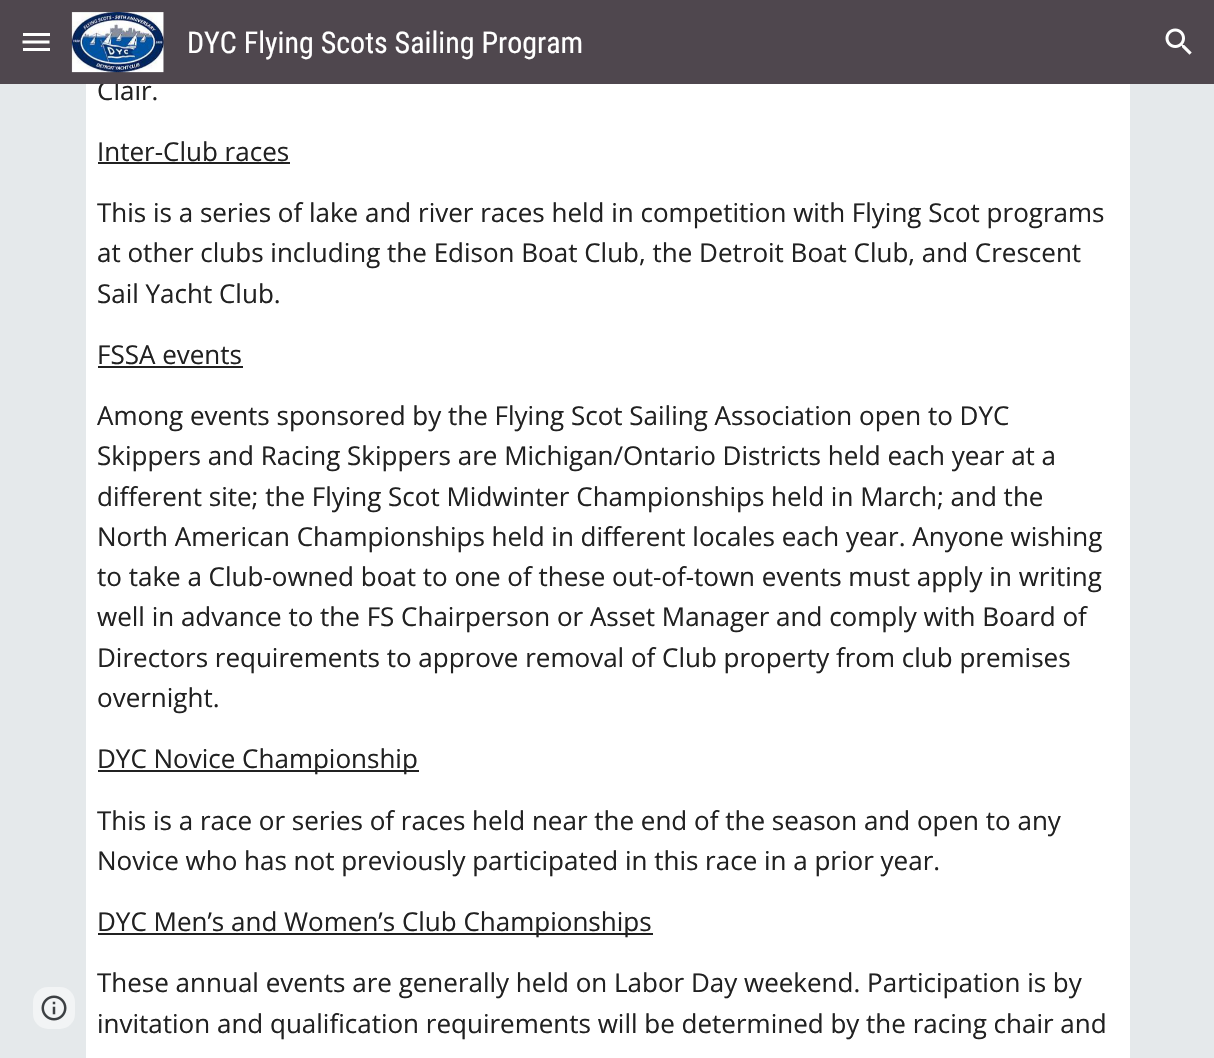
#include "include/core/SkBlurTypes.h"
#include "include/core/SkCanvas.h"
#include "include/core/SkData.h"
#include "include/core/SkFont.h"
#include "include/core/SkFontMgr.h"
#include "include/core/SkImage.h"
#include "include/core/SkMaskFilter.h"
#include "include/core/SkPaint.h"
#include "include/core/SkPathBuilder.h"
#include "include/core/SkTextBlob.h"
#include "include/effects/SkDashPathEffect.h"
#include "include/effects/SkGradientShader.h"
#include "include/utils/SkParsePath.h"

extern sk_sp<SkFontMgr> fontMgr;

void draw(SkCanvas* canvas) {
  SkPaint p;
  p.setAntiAlias(true);
  canvas->clear(SkColorSetRGB(229, 233, 235));
  p.setColor(SkColorSetRGB(242, 244, 245));
  canvas->drawRoundRect(SkRect::MakeLTRB(33, 987, 75, 1029), 15, 15, p);
  canvas->drawImageRect(SkImages::DeferredFromEncodedData(SkData::MakeFromFileName("images/3.png")), SkRect::MakeLTRB(41, 995, 67, 1021), SkSamplingOptions());
  p.setColor(SK_ColorWHITE);
  canvas->drawRect(SkRect::MakeLTRB(86, 84, 1130, 1058), p);
  p.setColor(SkColorSetRGB(33, 33, 33));
  canvas->drawRect(SkRect::MakeLTRB(98, 162, 290, 164), p);
  canvas->drawRect(SkRect::MakeLTRB(98, 366, 243, 368), p);
  canvas->drawRect(SkRect::MakeLTRB(98, 770, 419, 772), p);
  canvas->drawRect(SkRect::MakeLTRB(98, 933, 653, 935), p);
  SkFont font1(fontMgr->matchFamilyStyle("Open Sans", SkFontStyle::Normal()), 26);
  font1.setSubpixel(true);
  canvas->drawString("Clair.", 97, 100, font1, p);
  p.setColor(SkColorSetRGB(79, 71, 78));
  canvas->drawRect(SkRect::MakeLTRB(0, 0, 1214, 84), p);
  canvas->drawImageRect(SkImages::DeferredFromEncodedData(SkData::MakeFromFileName("images/2.png")), SkRect::MakeLTRB(1165, 28, 1192, 55), SkSamplingOptions());
  p.setColor(SK_ColorWHITE);
  canvas->drawRect(SkRect::MakeLTRB(23, 48, 50, 51), p);
  p.setStyle(SkPaint::kStroke_Style);
  p.setStrokeWidth(3);
  canvas->drawPath(SkPathBuilder().moveTo(22.5f, 42).lineTo(49.5f, 42).detach(), p);
  p.setStyle(SkPaint::kFill_Style);
  canvas->drawRect(SkRect::MakeLTRB(23, 33, 50, 36), p);
  SkFont font2(fontMgr->matchFamilyStyle("Roboto Condensed", SkFontStyle::Normal()), 30);
  font2.setSubpixel(true);
  canvas->drawString("DYC Flying Scots Sailing Program", 187, 53, font2, p);
  canvas->drawImageRect(SkImages::DeferredFromEncodedData(SkData::MakeFromFileName("images/1.png")), SkRect::MakeLTRB(71, 12, 164, 73), SkSamplingOptions());
  p.setColor(SkColorSetRGB(33, 33, 33));
  canvas->drawString("Inter-Club races", 97, 161, font1, p);
  canvas->drawString("This is a series of lake and river races held in competition with Flying Scot programs", 97, 222, font1, p);
  canvas->drawString("at other clubs including the Edison Boat Club, the Detroit Boat Club, and Crescent", 97, 262, font1, p);
  canvas->drawString("Sail Yacht Club.", 97, 303, font1, p);
  canvas->drawString("FSSA events", 97, 364, font1, p);
  canvas->drawString("Among events sponsored by the Flying Scot Sailing Association open to DYC", 97, 425, font1, p);
  canvas->drawString("Skippers and Racing Skippers are Michigan/Ontario Districts held each year at a", 97, 465, font1, p);
  canvas->drawString("different site; the Flying Scot Midwinter Championships held in March; and the", 97, 506, font1, p);
  canvas->drawString("North American Championships held in different locales each year. Anyone wishing", 97, 546, font1, p);
  canvas->drawString("to take a Club-owned boat to one of these out-of-town events must apply in writing", 97, 586, font1, p);
  canvas->drawString("well in advance to the FS Chairperson or Asset Manager and comply with Board of", 97, 626, font1, p);
  canvas->drawString("Directors requirements to approve removal of Club property from club premises", 97, 667, font1, p);
  canvas->drawString("overnight.", 97, 707, font1, p);
  canvas->drawString("DYC Novice Championship", 97, 768, font1, p);
  canvas->drawString("This is a race or series of races held near the end of the season and open to any", 97, 830, font1, p);
  canvas->drawString("Novice who has not previously participated in this race in a prior year.", 97, 870, font1, p);
  canvas->drawString("DYC Men’s and Women’s Club Championships", 97, 931, font1, p);
  canvas->drawString("These annual events are generally held on Labor Day weekend. Participation is by", 97, 992, font1, p);
  canvas->drawString("invitation and qualification requirements will be determined by the racing chair and", 97, 1033, font1, p);
}
